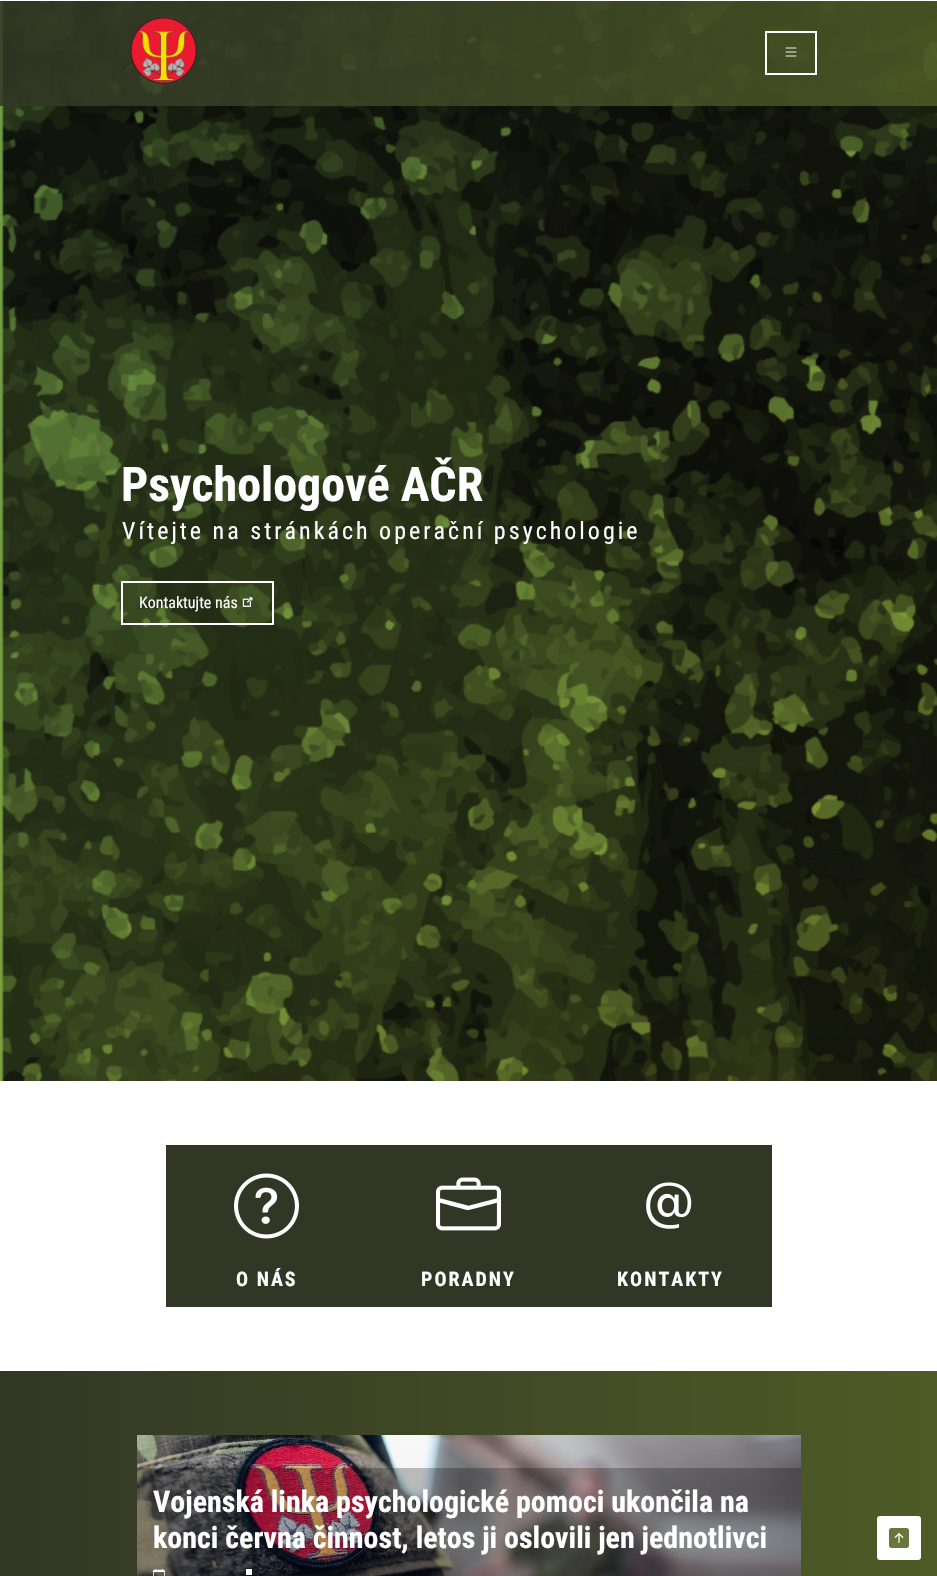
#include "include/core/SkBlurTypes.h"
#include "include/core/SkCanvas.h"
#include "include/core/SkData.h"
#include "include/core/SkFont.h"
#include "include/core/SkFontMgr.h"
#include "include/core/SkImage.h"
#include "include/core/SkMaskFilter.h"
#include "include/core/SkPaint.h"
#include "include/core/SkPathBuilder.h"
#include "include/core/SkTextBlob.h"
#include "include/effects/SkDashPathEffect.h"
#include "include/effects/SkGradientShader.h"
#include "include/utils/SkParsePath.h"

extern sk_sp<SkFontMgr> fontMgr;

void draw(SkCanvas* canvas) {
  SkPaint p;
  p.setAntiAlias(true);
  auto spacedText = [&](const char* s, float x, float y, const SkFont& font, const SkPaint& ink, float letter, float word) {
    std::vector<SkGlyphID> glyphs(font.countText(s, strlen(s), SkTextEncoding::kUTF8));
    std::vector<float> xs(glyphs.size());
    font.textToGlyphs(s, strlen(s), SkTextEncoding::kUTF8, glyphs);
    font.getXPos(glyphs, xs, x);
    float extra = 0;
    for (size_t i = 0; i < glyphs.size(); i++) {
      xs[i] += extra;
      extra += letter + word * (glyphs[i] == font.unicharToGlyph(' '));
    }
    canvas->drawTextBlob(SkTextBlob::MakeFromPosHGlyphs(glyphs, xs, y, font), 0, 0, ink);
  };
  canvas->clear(SK_ColorWHITE);
  canvas->drawImageRect(SkImages::DeferredFromEncodedData(SkData::MakeFromFileName("images/3.png")), SkRect::MakeLTRB(0, 1, 937, 1081), SkSamplingOptions());
  canvas->drawImageRect(SkImages::DeferredFromEncodedData(SkData::MakeFromFileName("images/1.png")), SkRect::MakeLTRB(130, 16, 197, 85), SkSamplingOptions());
  p.setStyle(SkPaint::kStroke_Style);
  p.setStrokeWidth(2);
  p.setColor(SK_ColorWHITE);
  canvas->drawRect(SkRect::MakeLTRB(766, 32, 816, 74), p);
  canvas->drawImageRect(SkImages::DeferredFromEncodedData(SkData::MakeFromFileName("images/2.png")), SkRect::MakeLTRB(785, 47, 797, 57), SkSamplingOptions());
  canvas->drawRect(SkRect::MakeLTRB(122, 582, 273, 624), p);
  canvas->drawImageRect(SkImages::DeferredFromEncodedData(SkData::MakeFromFileName("images/4.png")), SkRect::MakeLTRB(242, 597, 253, 607), SkSamplingOptions());
  p.setStyle(SkPaint::kFill_Style);
  p.setColor(SkColorSetRGB(50, 55, 37));
  canvas->drawRect(SkRect::MakeLTRB(166, 1145, 772, 1307), p);
  canvas->drawImageRect(SkImages::DeferredFromEncodedData(SkData::MakeFromFileName("images/5.png")), SkRect::MakeLTRB(234, 1173, 299, 1239), SkSamplingOptions());
  canvas->drawImageRect(SkImages::DeferredFromEncodedData(SkData::MakeFromFileName("images/6.png")), SkRect::MakeLTRB(436, 1177, 501, 1231), SkSamplingOptions());
  canvas->drawImageRect(SkImages::DeferredFromEncodedData(SkData::MakeFromFileName("images/7.png")), SkRect::MakeLTRB(646, 1182, 692, 1229), SkSamplingOptions());
  {
    const SkColor colors[] = {SkColorSetRGB(50, 55, 37), SkColorSetRGB(78, 91, 38)};
    const float stops[] = {0, 1};
    const SkPoint ends[] = {{0, 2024}, {937, 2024}};
    p.setShader(SkGradientShader::MakeLinear(ends, colors, stops, 2, SkTileMode::kClamp));
    p.setAlpha(255);
  }
  canvas->drawRect(SkRect::MakeLTRB(0, 1371, 937, 1576), p);
  canvas->drawImageRect(SkImages::DeferredFromEncodedData(SkData::MakeFromFileName("images/8.png")), SkRect::MakeLTRB(137, 1435, 801, 1576), SkSamplingOptions());
  p.setShader(nullptr);
  p.setColor(SkColorSetARGB(64, 0, 0, 0));
  canvas->drawRect(SkRect::MakeLTRB(137, 1468, 801, 1576), p);
  canvas->drawImageRect(SkImages::DeferredFromEncodedData(SkData::MakeFromFileName("images/9.png")), SkRect::MakeLTRB(153, 1569, 165, 1576), SkSamplingOptions());
  p.setColor(SK_ColorWHITE);
  canvas->drawRect(SkRect::MakeLTRB(246, 1569, 252, 1575), p);
  canvas->drawRoundRect(SkRect::MakeLTRB(877, 1516, 921, 1560), 3, 3, p);
  canvas->drawImageRect(SkImages::DeferredFromEncodedData(SkData::MakeFromFileName("images/10.png")), SkRect::MakeLTRB(889, 1528, 909, 1548), SkSamplingOptions());
  SkFont font1(fontMgr->matchFamilyStyle("Roboto Condensed", SkFontStyle::Bold()), 48);
  font1.setSubpixel(true);
  canvas->drawString("Psychologové AČR", 121, 501, font1, p);
  SkFont font2(fontMgr->matchFamilyStyle("Roboto Condensed", SkFontStyle::Normal()), 24);
  font2.setSubpixel(true);
  spacedText("Vítejte na stránkách operační psychologie", 122, 539, font2, p, 3, 0);
  SkFont font3(fontMgr->matchFamilyStyle("Roboto Condensed", SkFontStyle::Normal()), 16);
  font3.setSubpixel(true);
  canvas->drawString("Kontaktujte nás", 139, 608, font3, p);
  SkFont font4(fontMgr->matchFamilyStyle("Roboto Condensed", SkFontStyle::Bold()), 20);
  font4.setSubpixel(true);
  spacedText("O NÁS", 236, 1286, font4, p, 2, 0);
  spacedText("PORADNY", 421, 1286, font4, p, 2, 0);
  spacedText("KONTAKTY", 617, 1286, font4, p, 2, 0);
  SkFont font5(fontMgr->matchFamilyStyle("Roboto Condensed", SkFontStyle::Bold()), 30);
  font5.setSubpixel(true);
  canvas->drawString("Vojenská linka psychologické pomoci ukončila na", 153, 1512, font5, p);
  canvas->drawString("konci června činnost, letos ji oslovili jen jednotlivci", 153, 1548, font5, p);
}
